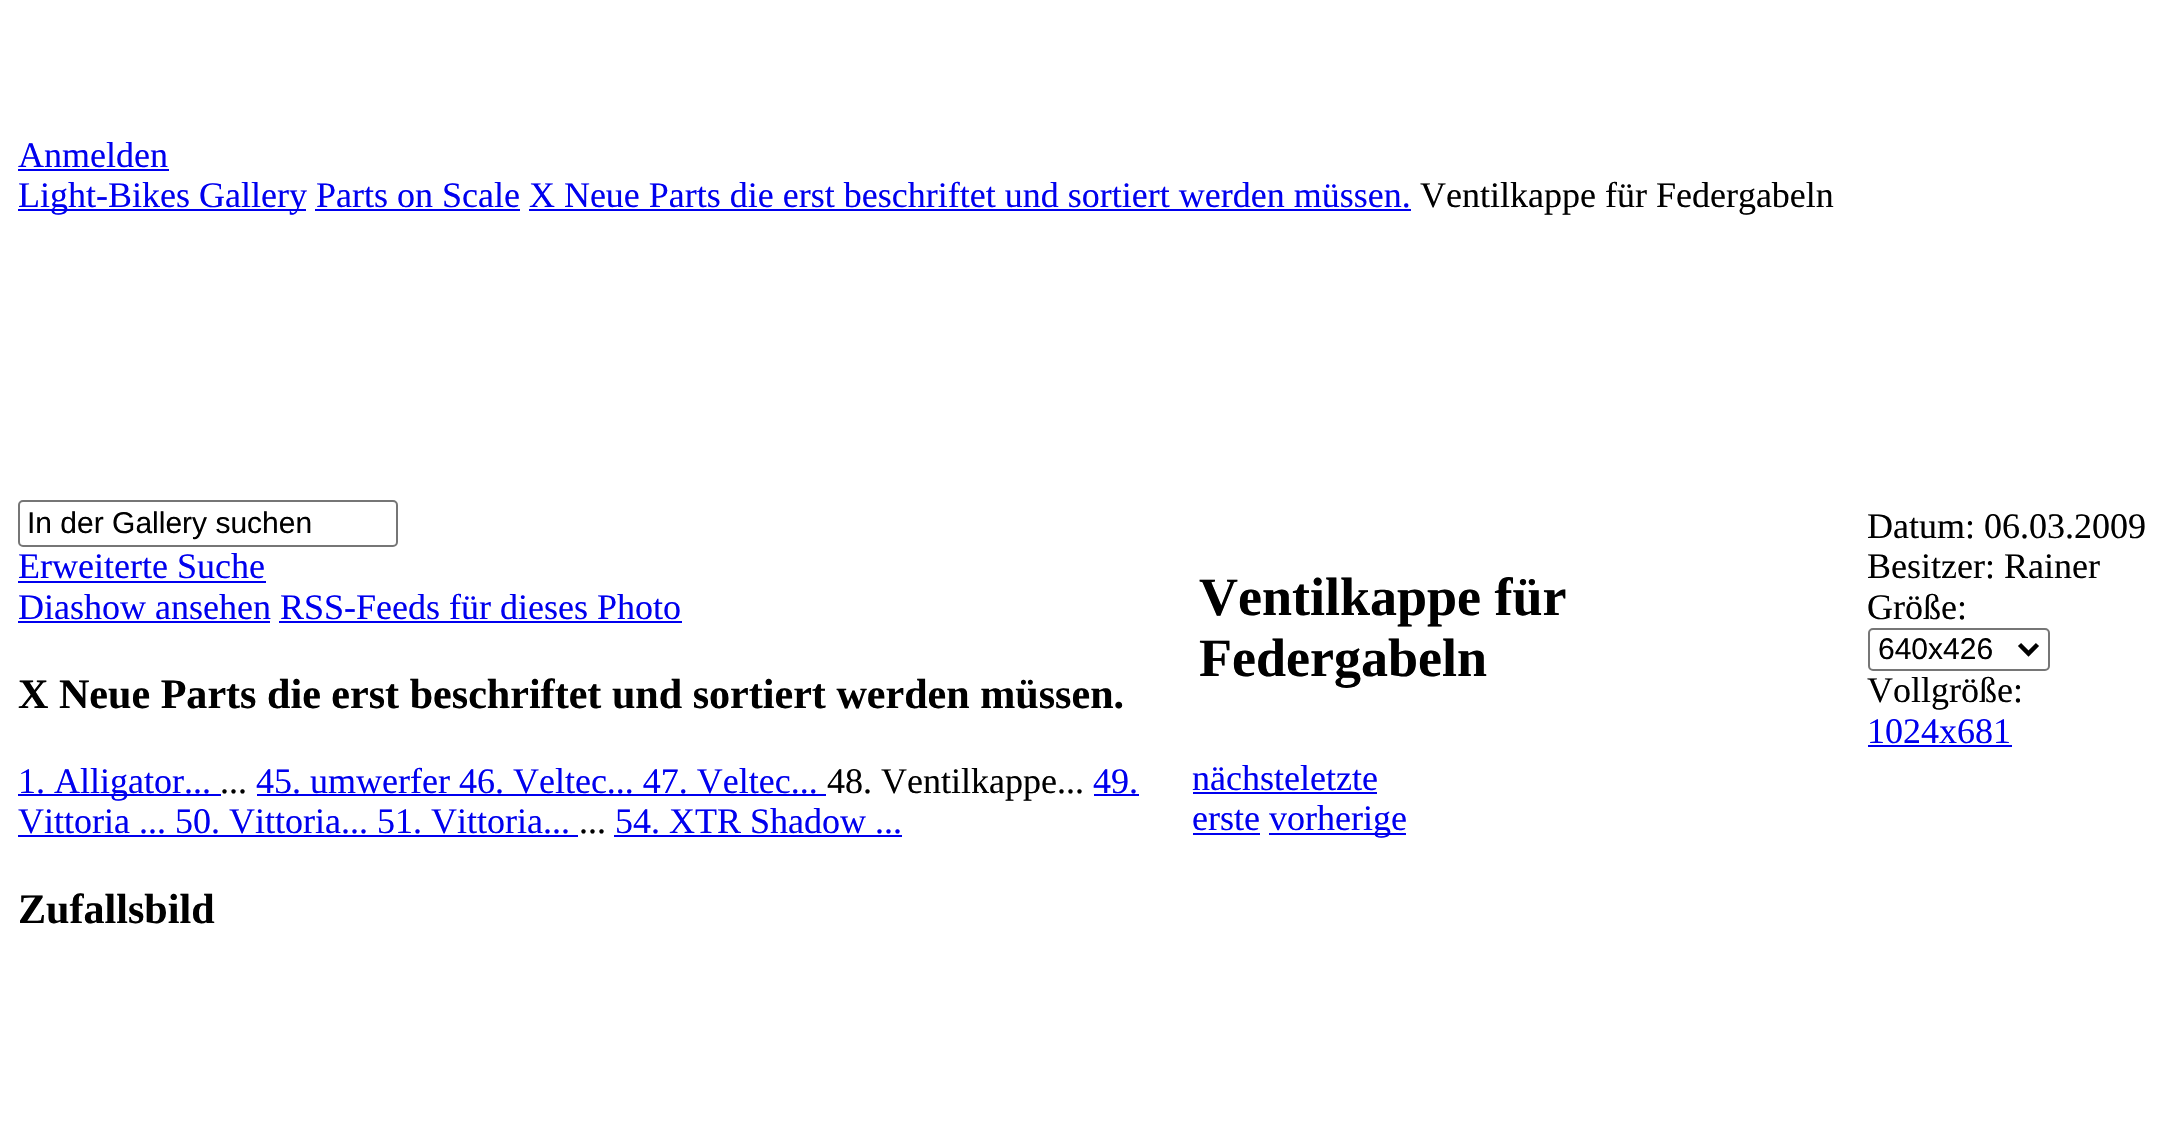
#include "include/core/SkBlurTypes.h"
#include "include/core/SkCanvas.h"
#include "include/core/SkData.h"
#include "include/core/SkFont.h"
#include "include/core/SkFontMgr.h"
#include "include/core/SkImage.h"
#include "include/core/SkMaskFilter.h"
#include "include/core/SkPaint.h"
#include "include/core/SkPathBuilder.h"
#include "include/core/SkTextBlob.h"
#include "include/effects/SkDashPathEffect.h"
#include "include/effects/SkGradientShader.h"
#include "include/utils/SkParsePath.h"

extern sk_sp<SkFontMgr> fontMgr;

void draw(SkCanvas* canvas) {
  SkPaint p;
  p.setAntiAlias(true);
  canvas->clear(SK_ColorWHITE);
  p.setColor(SkColorSetRGB(0, 0, 238));
  canvas->drawRect(SkRect::MakeLTRB(18, 169, 169, 171), p);
  canvas->drawRect(SkRect::MakeLTRB(18, 209, 306, 211), p);
  canvas->drawRect(SkRect::MakeLTRB(315, 209, 520, 211), p);
  canvas->drawRect(SkRect::MakeLTRB(529, 209, 1411, 211), p);
  p.setStyle(SkPaint::kStroke_Style);
  p.setStrokeWidth(2);
  p.setColor(SkColorSetRGB(118, 118, 118));
  canvas->drawRoundRect(SkRect::MakeLTRB(19, 501, 397, 546), 4, 4, p);
  p.setStyle(SkPaint::kFill_Style);
  p.setColor(SkColorSetRGB(0, 0, 238));
  canvas->drawRect(SkRect::MakeLTRB(18, 581, 266, 583), p);
  canvas->drawRect(SkRect::MakeLTRB(18, 621, 270, 623), p);
  canvas->drawRect(SkRect::MakeLTRB(279, 621, 682, 623), p);
  canvas->drawRect(SkRect::MakeLTRB(18, 794, 221, 796), p);
  canvas->drawRect(SkRect::MakeLTRB(257, 794, 826, 796), p);
  canvas->drawRect(SkRect::MakeLTRB(1094, 794, 1139, 796), p);
  canvas->drawRect(SkRect::MakeLTRB(18, 835, 578, 837), p);
  canvas->drawRect(SkRect::MakeLTRB(614, 835, 902, 837), p);
  p.setStyle(SkPaint::kStroke_Style);
  p.setColor(SkColorSetRGB(118, 118, 118));
  canvas->drawRoundRect(SkRect::MakeLTRB(1869, 629, 2049, 670), 4, 4, p);
  p.setStrokeWidth(4.5f);
  p.setColor(SK_ColorBLACK);
  canvas->drawPath(SkPathBuilder().moveTo(2019.5f, 644.5f).lineTo(2028.5f, 653.5f).lineTo(2037.5f, 644.5f).detach(), p);
  p.setStyle(SkPaint::kFill_Style);
  p.setColor(SkColorSetRGB(0, 0, 238));
  canvas->drawRect(SkRect::MakeLTRB(1868, 745, 2012, 747), p);
  canvas->drawRect(SkRect::MakeLTRB(1193, 792, 1377, 794), p);
  canvas->drawRect(SkRect::MakeLTRB(1193, 833, 1260, 835), p);
  canvas->drawRect(SkRect::MakeLTRB(1269, 833, 1406, 835), p);
  SkFont font1(fontMgr->matchFamilyStyle("Liberation Serif", SkFontStyle::Normal()), 36);
  font1.setSubpixel(true);
  canvas->drawString("Anmelden", 18, 167, font1, p);
  canvas->drawString("Light-Bikes Gallery Parts on Scale X Neue Parts die erst beschriftet und sortiert werden müssen.", 18, 207, font1, p);
  p.setColor(SK_ColorBLACK);
  canvas->drawString("Ventilkappe für Federgabeln", 1420, 207, font1, p);
  SkFont font2(fontMgr->matchFamilyStyle("Liberation Sans", SkFontStyle::Normal()), 30);
  font2.setSubpixel(true);
  canvas->drawString("In der Gallery suchen", 27, 533, font2, p);
  p.setColor(SkColorSetRGB(0, 0, 238));
  canvas->drawString("Erweiterte Suche", 18, 578, font1, p);
  canvas->drawString("Diashow ansehen RSS-Feeds für dieses Photo", 18, 619, font1, p);
  SkFont font3(fontMgr->matchFamilyStyle("Liberation Serif", SkFontStyle::Bold()), 42.1f);
  font3.setSubpixel(true);
  p.setColor(SK_ColorBLACK);
  canvas->drawString("X Neue Parts die erst beschriftet und sortiert werden müssen.", 18, 708, font3, p);
  p.setColor(SkColorSetRGB(0, 0, 238));
  canvas->drawString("1. Alligator...", 18, 793, font1, p);
  p.setColor(SK_ColorBLACK);
  canvas->drawString("...", 220, 793, font1, p);
  p.setColor(SkColorSetRGB(0, 0, 238));
  canvas->drawString("45. umwerfer 46. Veltec... 47. Veltec...", 256, 793, font1, p);
  p.setColor(SK_ColorBLACK);
  canvas->drawString("48. Ventilkappe...", 827, 793, font1, p);
  p.setColor(SkColorSetRGB(0, 0, 238));
  canvas->drawString("49.", 1093, 793, font1, p);
  canvas->drawString("Vittoria ... 50. Vittoria... 51. Vittoria...", 18, 833, font1, p);
  p.setColor(SK_ColorBLACK);
  canvas->drawString("...", 579, 833, font1, p);
  p.setColor(SkColorSetRGB(0, 0, 238));
  canvas->drawString("54. XTR Shadow ...", 615, 833, font1, p);
  p.setColor(SK_ColorBLACK);
  canvas->drawString("Zufallsbild", 18, 923, font3, p);
  SkFont font4(fontMgr->matchFamilyStyle("Liberation Serif", SkFontStyle::Bold()), 54);
  font4.setSubpixel(true);
  canvas->drawString("Ventilkappe für", 1199, 615, font4, p);
  canvas->drawString("Federgabeln", 1199, 676, font4, p);
  canvas->drawString("Datum: 06.03.2009", 1867, 538, font1, p);
  canvas->drawString("Besitzer: Rainer", 1867, 578, font1, p);
  canvas->drawString("Größe:", 1867, 619, font1, p);
  canvas->drawString("640x426", 1878, 659, font2, p);
  canvas->drawString("Vollgröße:", 1867, 702, font1, p);
  p.setColor(SkColorSetRGB(0, 0, 238));
  canvas->drawString("1024x681", 1867, 743, font1, p);
  canvas->drawString("nächsteletzte", 1192, 790, font1, p);
  canvas->drawString("erste", 1192, 830, font1, p);
  canvas->drawString("vorherige", 1269, 830, font1, p);
}
